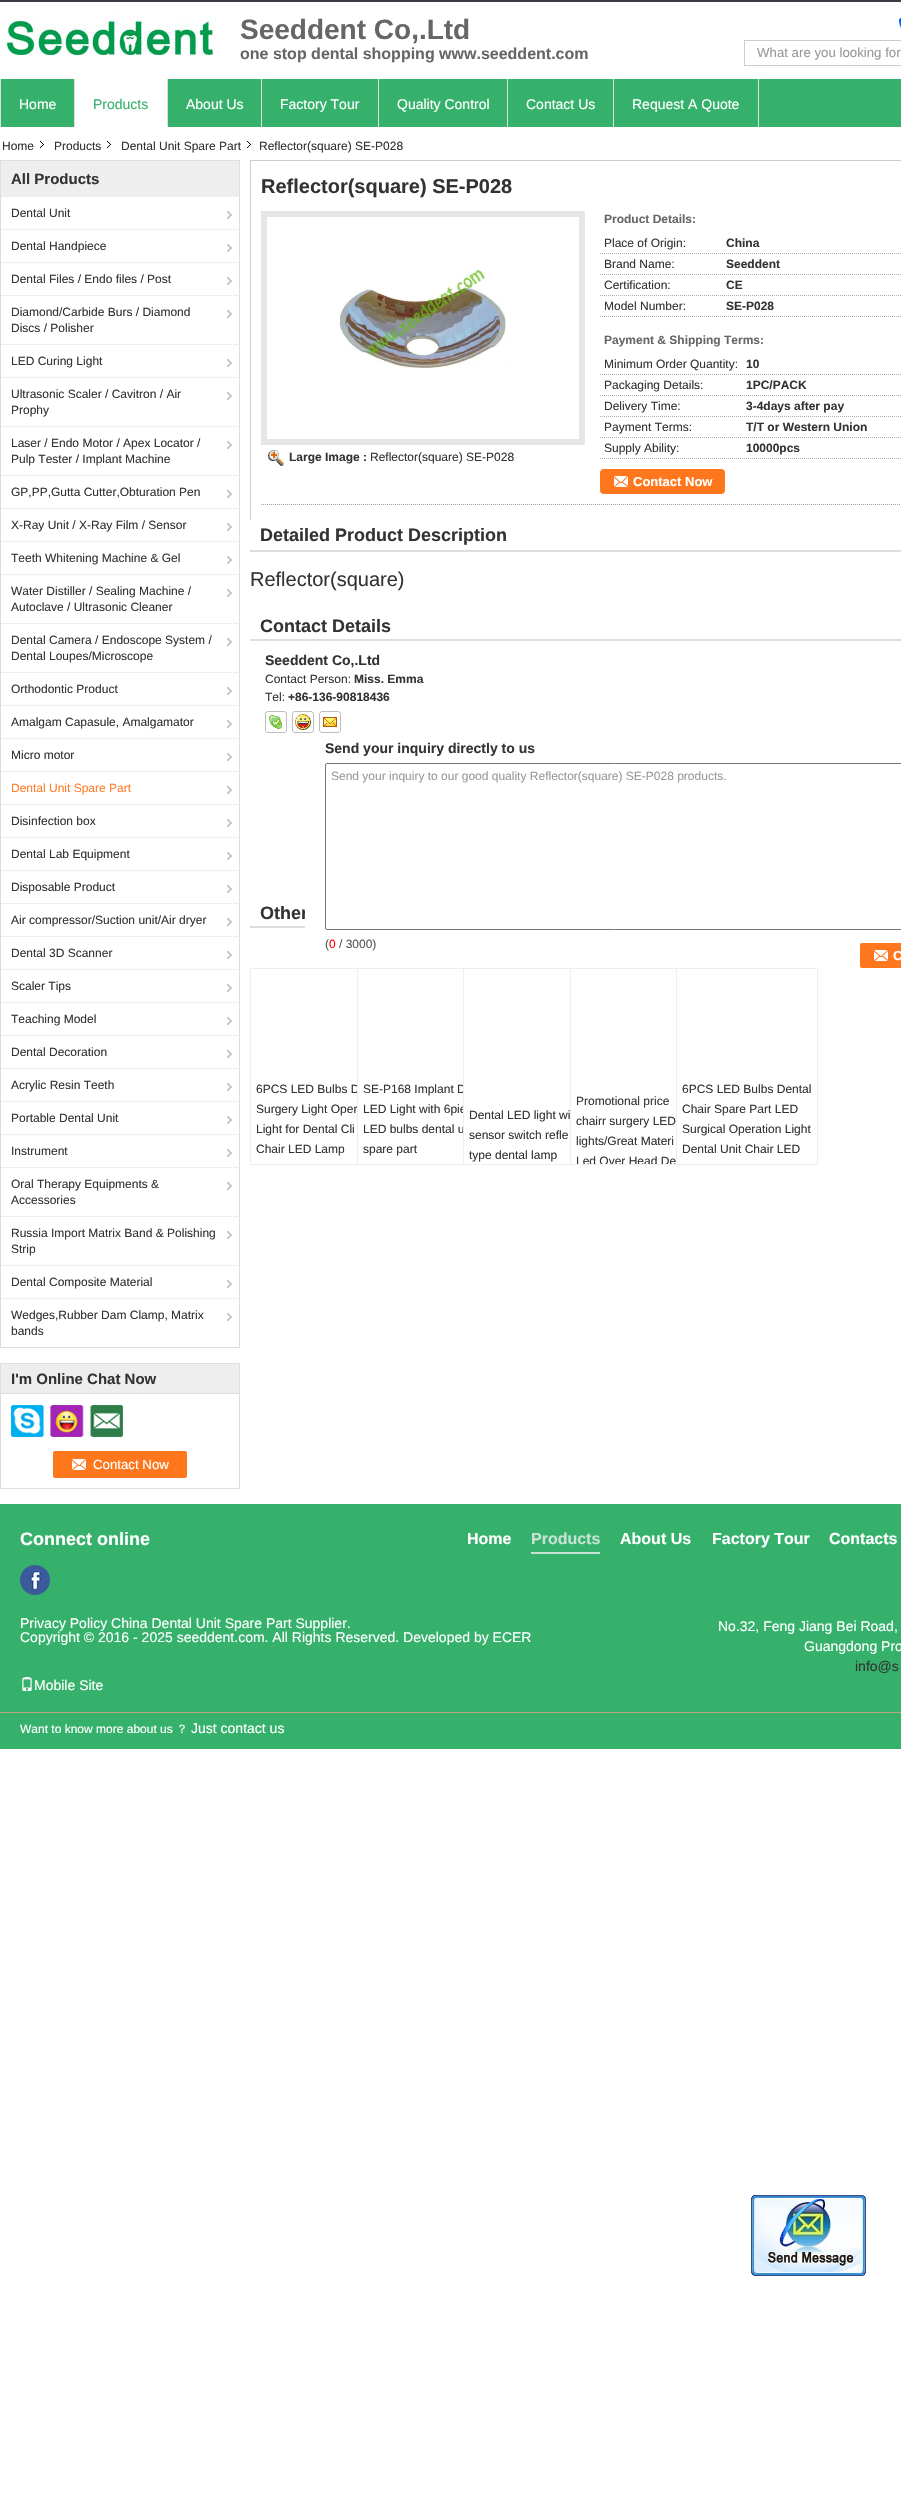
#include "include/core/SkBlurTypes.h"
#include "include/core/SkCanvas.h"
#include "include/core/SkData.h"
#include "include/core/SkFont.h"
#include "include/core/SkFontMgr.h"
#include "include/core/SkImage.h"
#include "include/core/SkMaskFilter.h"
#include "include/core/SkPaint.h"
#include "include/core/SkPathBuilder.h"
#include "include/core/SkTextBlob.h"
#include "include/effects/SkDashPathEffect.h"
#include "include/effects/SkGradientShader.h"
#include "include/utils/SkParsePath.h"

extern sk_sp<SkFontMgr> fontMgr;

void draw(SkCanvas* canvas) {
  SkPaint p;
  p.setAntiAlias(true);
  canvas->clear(SK_ColorWHITE);
  p.setColor(SkColorSetRGB(55, 61, 67));
  canvas->drawRect(SkRect::MakeLTRB(0, 0, 901, 2), p);
  canvas->drawImageRect(SkImages::DeferredFromEncodedData(SkData::MakeFromFileName("images/1.png")), SkRect::MakeLTRB(0, 15, 216, 55), SkSamplingOptions());
  canvas->drawImageRect(SkImages::DeferredFromEncodedData(SkData::MakeFromFileName("images/2.png")), SkRect::MakeLTRB(899, 17, 901, 28), SkSamplingOptions());
  p.setColor(SkColorSetRGB(204, 204, 204));
  canvas->drawRect(SkRect::MakeLTRB(744, 40, 901, 41), p);
  canvas->drawRect(SkRect::MakeLTRB(744, 65, 901, 66), p);
  canvas->drawRect(SkRect::MakeLTRB(744, 40, 745, 66), p);
  p.setColor(SkColorSetRGB(53, 177, 108));
  canvas->drawRect(SkRect::MakeLTRB(1, 79, 901, 127), p);
  p.setColor(SkColorSetRGB(222, 222, 222));
  canvas->drawRect(SkRect::MakeLTRB(0, 79, 1, 127), p);
  p.setColor(SK_ColorWHITE);
  canvas->drawRect(SkRect::MakeLTRB(75, 79, 167, 127), p);
  p.setColor(SkColorSetRGB(222, 222, 222));
  canvas->drawRect(SkRect::MakeLTRB(74, 79, 75, 127), p);
  canvas->drawRect(SkRect::MakeLTRB(167, 79, 168, 127), p);
  canvas->drawRect(SkRect::MakeLTRB(261, 79, 262, 127), p);
  canvas->drawRect(SkRect::MakeLTRB(378, 79, 379, 127), p);
  canvas->drawRect(SkRect::MakeLTRB(507, 79, 508, 127), p);
  canvas->drawRect(SkRect::MakeLTRB(758, 79, 759, 127), p);
  canvas->drawRect(SkRect::MakeLTRB(613, 79, 614, 127), p);
  canvas->drawImageRect(SkImages::DeferredFromEncodedData(SkData::MakeFromFileName("images/3.png")), SkRect::MakeLTRB(40, 141, 44, 148), SkSamplingOptions());
  canvas->drawImageRect(SkImages::DeferredFromEncodedData(SkData::MakeFromFileName("images/4.png")), SkRect::MakeLTRB(107, 141, 112, 148), SkSamplingOptions());
  canvas->drawImageRect(SkImages::DeferredFromEncodedData(SkData::MakeFromFileName("images/4.png")), SkRect::MakeLTRB(247, 141, 252, 148), SkSamplingOptions());
  p.setStyle(SkPaint::kStroke_Style);
  p.setStrokeWidth(1);
  canvas->drawRect(SkRect::MakeLTRB(0.5f, 160.5f, 239.5f, 1347.5f), p);
  p.setStyle(SkPaint::kFill_Style);
  p.setColor(SkColorSetRGB(238, 238, 238));
  canvas->drawRect(SkRect::MakeLTRB(1, 161, 239, 196), p);
  canvas->drawImageRect(SkImages::DeferredFromEncodedData(SkData::MakeFromFileName("images/5.png")), SkRect::MakeLTRB(227, 211, 232, 219), SkSamplingOptions());
  p.setStyle(SkPaint::kStroke_Style);
  p.setColor(SkColorSetRGB(222, 222, 222));
  p.setPathEffect(SkDashPathEffect::Make({{1, 1}}, 0));
  canvas->drawPath(SkPathBuilder().moveTo(1, 196.5f).lineTo(239, 196.5f).detach(), p);
  p.setPathEffect(nullptr);
  canvas->drawImageRect(SkImages::DeferredFromEncodedData(SkData::MakeFromFileName("images/5.png")), SkRect::MakeLTRB(227, 244, 232, 252), SkSamplingOptions());
  p.setPathEffect(SkDashPathEffect::Make({{1, 1}}, 0));
  canvas->drawPath(SkPathBuilder().moveTo(1, 229.5f).lineTo(239, 229.5f).detach(), p);
  p.setPathEffect(nullptr);
  canvas->drawImageRect(SkImages::DeferredFromEncodedData(SkData::MakeFromFileName("images/5.png")), SkRect::MakeLTRB(227, 277, 232, 285), SkSamplingOptions());
  p.setPathEffect(SkDashPathEffect::Make({{1, 1}}, 0));
  canvas->drawPath(SkPathBuilder().moveTo(1, 262.5f).lineTo(239, 262.5f).detach(), p);
  p.setPathEffect(nullptr);
  canvas->drawImageRect(SkImages::DeferredFromEncodedData(SkData::MakeFromFileName("images/5.png")), SkRect::MakeLTRB(227, 310, 232, 318), SkSamplingOptions());
  p.setPathEffect(SkDashPathEffect::Make({{1, 1}}, 0));
  canvas->drawPath(SkPathBuilder().moveTo(1, 295.5f).lineTo(239, 295.5f).detach(), p);
  p.setPathEffect(nullptr);
  canvas->drawImageRect(SkImages::DeferredFromEncodedData(SkData::MakeFromFileName("images/5.png")), SkRect::MakeLTRB(227, 359, 232, 367), SkSamplingOptions());
  p.setPathEffect(SkDashPathEffect::Make({{1, 1}}, 0));
  canvas->drawPath(SkPathBuilder().moveTo(1, 344.5f).lineTo(239, 344.5f).detach(), p);
  p.setPathEffect(nullptr);
  canvas->drawImageRect(SkImages::DeferredFromEncodedData(SkData::MakeFromFileName("images/5.png")), SkRect::MakeLTRB(227, 392, 232, 400), SkSamplingOptions());
  p.setPathEffect(SkDashPathEffect::Make({{1, 1}}, 0));
  canvas->drawPath(SkPathBuilder().moveTo(1, 377.5f).lineTo(239, 377.5f).detach(), p);
  p.setPathEffect(nullptr);
  canvas->drawImageRect(SkImages::DeferredFromEncodedData(SkData::MakeFromFileName("images/5.png")), SkRect::MakeLTRB(227, 441, 232, 449), SkSamplingOptions());
  p.setPathEffect(SkDashPathEffect::Make({{1, 1}}, 0));
  canvas->drawPath(SkPathBuilder().moveTo(1, 426.5f).lineTo(239, 426.5f).detach(), p);
  p.setPathEffect(nullptr);
  canvas->drawImageRect(SkImages::DeferredFromEncodedData(SkData::MakeFromFileName("images/5.png")), SkRect::MakeLTRB(227, 490, 232, 498), SkSamplingOptions());
  p.setPathEffect(SkDashPathEffect::Make({{1, 1}}, 0));
  canvas->drawPath(SkPathBuilder().moveTo(1, 475.5f).lineTo(239, 475.5f).detach(), p);
  p.setPathEffect(nullptr);
  canvas->drawImageRect(SkImages::DeferredFromEncodedData(SkData::MakeFromFileName("images/5.png")), SkRect::MakeLTRB(227, 523, 232, 531), SkSamplingOptions());
  p.setPathEffect(SkDashPathEffect::Make({{1, 1}}, 0));
  canvas->drawPath(SkPathBuilder().moveTo(1, 508.5f).lineTo(239, 508.5f).detach(), p);
  p.setPathEffect(nullptr);
  canvas->drawImageRect(SkImages::DeferredFromEncodedData(SkData::MakeFromFileName("images/5.png")), SkRect::MakeLTRB(227, 556, 232, 564), SkSamplingOptions());
  p.setPathEffect(SkDashPathEffect::Make({{1, 1}}, 0));
  canvas->drawPath(SkPathBuilder().moveTo(1, 541.5f).lineTo(239, 541.5f).detach(), p);
  p.setPathEffect(nullptr);
  canvas->drawImageRect(SkImages::DeferredFromEncodedData(SkData::MakeFromFileName("images/5.png")), SkRect::MakeLTRB(227, 589, 232, 597), SkSamplingOptions());
  p.setPathEffect(SkDashPathEffect::Make({{1, 1}}, 0));
  canvas->drawPath(SkPathBuilder().moveTo(1, 574.5f).lineTo(239, 574.5f).detach(), p);
  p.setPathEffect(nullptr);
  canvas->drawImageRect(SkImages::DeferredFromEncodedData(SkData::MakeFromFileName("images/5.png")), SkRect::MakeLTRB(227, 638, 232, 646), SkSamplingOptions());
  p.setPathEffect(SkDashPathEffect::Make({{1, 1}}, 0));
  canvas->drawPath(SkPathBuilder().moveTo(1, 623.5f).lineTo(239, 623.5f).detach(), p);
  p.setPathEffect(nullptr);
  canvas->drawImageRect(SkImages::DeferredFromEncodedData(SkData::MakeFromFileName("images/5.png")), SkRect::MakeLTRB(227, 687, 232, 695), SkSamplingOptions());
  p.setPathEffect(SkDashPathEffect::Make({{1, 1}}, 0));
  canvas->drawPath(SkPathBuilder().moveTo(1, 672.5f).lineTo(239, 672.5f).detach(), p);
  p.setPathEffect(nullptr);
  canvas->drawImageRect(SkImages::DeferredFromEncodedData(SkData::MakeFromFileName("images/5.png")), SkRect::MakeLTRB(227, 720, 232, 728), SkSamplingOptions());
  p.setPathEffect(SkDashPathEffect::Make({{1, 1}}, 0));
  canvas->drawPath(SkPathBuilder().moveTo(1, 705.5f).lineTo(239, 705.5f).detach(), p);
  p.setPathEffect(nullptr);
  canvas->drawImageRect(SkImages::DeferredFromEncodedData(SkData::MakeFromFileName("images/5.png")), SkRect::MakeLTRB(227, 753, 232, 761), SkSamplingOptions());
  p.setPathEffect(SkDashPathEffect::Make({{1, 1}}, 0));
  canvas->drawPath(SkPathBuilder().moveTo(1, 738.5f).lineTo(239, 738.5f).detach(), p);
  p.setPathEffect(nullptr);
  canvas->drawImageRect(SkImages::DeferredFromEncodedData(SkData::MakeFromFileName("images/5.png")), SkRect::MakeLTRB(227, 786, 232, 794), SkSamplingOptions());
  p.setPathEffect(SkDashPathEffect::Make({{1, 1}}, 0));
  canvas->drawPath(SkPathBuilder().moveTo(1, 771.5f).lineTo(239, 771.5f).detach(), p);
  p.setPathEffect(nullptr);
  canvas->drawImageRect(SkImages::DeferredFromEncodedData(SkData::MakeFromFileName("images/5.png")), SkRect::MakeLTRB(227, 819, 232, 827), SkSamplingOptions());
  p.setPathEffect(SkDashPathEffect::Make({{1, 1}}, 0));
  canvas->drawPath(SkPathBuilder().moveTo(1, 804.5f).lineTo(239, 804.5f).detach(), p);
  p.setPathEffect(nullptr);
  canvas->drawImageRect(SkImages::DeferredFromEncodedData(SkData::MakeFromFileName("images/5.png")), SkRect::MakeLTRB(227, 852, 232, 860), SkSamplingOptions());
  p.setPathEffect(SkDashPathEffect::Make({{1, 1}}, 0));
  canvas->drawPath(SkPathBuilder().moveTo(1, 837.5f).lineTo(239, 837.5f).detach(), p);
  p.setPathEffect(nullptr);
  canvas->drawImageRect(SkImages::DeferredFromEncodedData(SkData::MakeFromFileName("images/5.png")), SkRect::MakeLTRB(227, 885, 232, 893), SkSamplingOptions());
  p.setPathEffect(SkDashPathEffect::Make({{1, 1}}, 0));
  canvas->drawPath(SkPathBuilder().moveTo(1, 870.5f).lineTo(239, 870.5f).detach(), p);
  p.setPathEffect(nullptr);
  canvas->drawImageRect(SkImages::DeferredFromEncodedData(SkData::MakeFromFileName("images/5.png")), SkRect::MakeLTRB(227, 918, 232, 926), SkSamplingOptions());
  p.setPathEffect(SkDashPathEffect::Make({{1, 1}}, 0));
  canvas->drawPath(SkPathBuilder().moveTo(1, 903.5f).lineTo(239, 903.5f).detach(), p);
  p.setPathEffect(nullptr);
  canvas->drawImageRect(SkImages::DeferredFromEncodedData(SkData::MakeFromFileName("images/5.png")), SkRect::MakeLTRB(227, 951, 232, 959), SkSamplingOptions());
  p.setPathEffect(SkDashPathEffect::Make({{1, 1}}, 0));
  canvas->drawPath(SkPathBuilder().moveTo(1, 936.5f).lineTo(239, 936.5f).detach(), p);
  p.setPathEffect(nullptr);
  canvas->drawImageRect(SkImages::DeferredFromEncodedData(SkData::MakeFromFileName("images/5.png")), SkRect::MakeLTRB(227, 984, 232, 992), SkSamplingOptions());
  p.setPathEffect(SkDashPathEffect::Make({{1, 1}}, 0));
  canvas->drawPath(SkPathBuilder().moveTo(1, 969.5f).lineTo(239, 969.5f).detach(), p);
  p.setPathEffect(nullptr);
  canvas->drawImageRect(SkImages::DeferredFromEncodedData(SkData::MakeFromFileName("images/5.png")), SkRect::MakeLTRB(227, 1017, 232, 1025), SkSamplingOptions());
  p.setPathEffect(SkDashPathEffect::Make({{1, 1}}, 0));
  canvas->drawPath(SkPathBuilder().moveTo(1, 1002.5f).lineTo(239, 1002.5f).detach(), p);
  p.setPathEffect(nullptr);
  canvas->drawImageRect(SkImages::DeferredFromEncodedData(SkData::MakeFromFileName("images/5.png")), SkRect::MakeLTRB(227, 1050, 232, 1058), SkSamplingOptions());
  p.setPathEffect(SkDashPathEffect::Make({{1, 1}}, 0));
  canvas->drawPath(SkPathBuilder().moveTo(1, 1035.5f).lineTo(239, 1035.5f).detach(), p);
  p.setPathEffect(nullptr);
  canvas->drawImageRect(SkImages::DeferredFromEncodedData(SkData::MakeFromFileName("images/5.png")), SkRect::MakeLTRB(227, 1083, 232, 1091), SkSamplingOptions());
  p.setPathEffect(SkDashPathEffect::Make({{1, 1}}, 0));
  canvas->drawPath(SkPathBuilder().moveTo(1, 1068.5f).lineTo(239, 1068.5f).detach(), p);
  p.setPathEffect(nullptr);
  canvas->drawImageRect(SkImages::DeferredFromEncodedData(SkData::MakeFromFileName("images/5.png")), SkRect::MakeLTRB(227, 1116, 232, 1124), SkSamplingOptions());
  p.setPathEffect(SkDashPathEffect::Make({{1, 1}}, 0));
  canvas->drawPath(SkPathBuilder().moveTo(1, 1101.5f).lineTo(239, 1101.5f).detach(), p);
  p.setPathEffect(nullptr);
  canvas->drawImageRect(SkImages::DeferredFromEncodedData(SkData::MakeFromFileName("images/5.png")), SkRect::MakeLTRB(227, 1149, 232, 1157), SkSamplingOptions());
  p.setPathEffect(SkDashPathEffect::Make({{1, 1}}, 0));
  canvas->drawPath(SkPathBuilder().moveTo(1, 1134.5f).lineTo(239, 1134.5f).detach(), p);
  p.setPathEffect(nullptr);
  canvas->drawImageRect(SkImages::DeferredFromEncodedData(SkData::MakeFromFileName("images/5.png")), SkRect::MakeLTRB(227, 1182, 232, 1190), SkSamplingOptions());
  p.setPathEffect(SkDashPathEffect::Make({{1, 1}}, 0));
  canvas->drawPath(SkPathBuilder().moveTo(1, 1167.5f).lineTo(239, 1167.5f).detach(), p);
  p.setPathEffect(nullptr);
  canvas->drawImageRect(SkImages::DeferredFromEncodedData(SkData::MakeFromFileName("images/5.png")), SkRect::MakeLTRB(227, 1231, 232, 1239), SkSamplingOptions());
  p.setPathEffect(SkDashPathEffect::Make({{1, 1}}, 0));
  canvas->drawPath(SkPathBuilder().moveTo(1, 1216.5f).lineTo(239, 1216.5f).detach(), p);
  p.setPathEffect(nullptr);
  canvas->drawImageRect(SkImages::DeferredFromEncodedData(SkData::MakeFromFileName("images/5.png")), SkRect::MakeLTRB(227, 1280, 232, 1288), SkSamplingOptions());
  p.setPathEffect(SkDashPathEffect::Make({{1, 1}}, 0));
  canvas->drawPath(SkPathBuilder().moveTo(1, 1265.5f).lineTo(239, 1265.5f).detach(), p);
  p.setPathEffect(nullptr);
  canvas->drawImageRect(SkImages::DeferredFromEncodedData(SkData::MakeFromFileName("images/5.png")), SkRect::MakeLTRB(227, 1313, 232, 1321), SkSamplingOptions());
  p.setPathEffect(SkDashPathEffect::Make({{1, 1}}, 0));
  canvas->drawPath(SkPathBuilder().moveTo(1, 1298.5f).lineTo(239, 1298.5f).detach(), p);
  p.setPathEffect(nullptr);
  canvas->drawRect(SkRect::MakeLTRB(0.5f, 1363.5f, 239.5f, 1488.5f), p);
  p.setStyle(SkPaint::kFill_Style);
  p.setColor(SkColorSetRGB(238, 238, 238));
  canvas->drawRect(SkRect::MakeLTRB(1, 1364, 239, 1393), p);
  p.setColor(SkColorSetRGB(222, 222, 222));
  canvas->drawRect(SkRect::MakeLTRB(1, 1393, 239, 1394), p);
  canvas->drawImageRect(SkImages::DeferredFromEncodedData(SkData::MakeFromFileName("images/6.png")), SkRect::MakeLTRB(11, 1405, 45, 1437), SkSamplingOptions());
  canvas->drawImageRect(SkImages::DeferredFromEncodedData(SkData::MakeFromFileName("images/7.png")), SkRect::MakeLTRB(50, 1405, 84, 1437), SkSamplingOptions());
  canvas->drawImageRect(SkImages::DeferredFromEncodedData(SkData::MakeFromFileName("images/8.png")), SkRect::MakeLTRB(90, 1405, 123, 1437), SkSamplingOptions());
  p.setColor(SkColorSetRGB(255, 119, 28));
  canvas->drawRoundRect(SkRect::MakeLTRB(53, 1451, 187, 1478), 2, 2, p);
  canvas->drawImageRect(SkImages::DeferredFromEncodedData(SkData::MakeFromFileName("images/9.png")), SkRect::MakeLTRB(72, 1459, 86, 1470), SkSamplingOptions());
  p.setColor(SkColorSetRGB(204, 204, 204));
  canvas->drawRect(SkRect::MakeLTRB(250, 160, 901, 161), p);
  canvas->drawRect(SkRect::MakeLTRB(250, 160, 251, 520), p);
  p.setStyle(SkPaint::kStroke_Style);
  p.setColor(SkColorSetRGB(162, 162, 162));
  p.setPathEffect(SkDashPathEffect::Make({{1, 1}}, 0));
  canvas->drawPath(SkPathBuilder().moveTo(261, 504.5f).lineTo(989, 504.5f).detach(), p);
  p.setPathEffect(nullptr);
  p.setStrokeWidth(6);
  p.setColor(SkColorSetRGB(230, 230, 230));
  canvas->drawRect(SkRect::MakeLTRB(264, 214, 582, 442), p);
  canvas->drawImageRect(SkImages::DeferredFromEncodedData(SkData::MakeFromFileName("images/10.png")), SkRect::MakeLTRB(339, 270, 507, 368), SkSamplingOptions());
  canvas->drawImageRect(SkImages::DeferredFromEncodedData(SkData::MakeFromFileName("images/11.png")), SkRect::MakeLTRB(268, 450, 284, 466), SkSamplingOptions());
  p.setStrokeWidth(1);
  p.setColor(SkColorSetRGB(175, 175, 175));
  p.setPathEffect(SkDashPathEffect::Make({{1, 1}}, 0));
  canvas->drawPath(SkPathBuilder().moveTo(600, 253.5f).lineTo(722, 253.5f).detach(), p);
  p.setPathEffect(nullptr);
  p.setPathEffect(SkDashPathEffect::Make({{1, 1}}, 0));
  canvas->drawPath(SkPathBuilder().moveTo(722, 253.5f).lineTo(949, 253.5f).detach(), p);
  p.setPathEffect(nullptr);
  p.setPathEffect(SkDashPathEffect::Make({{1, 1}}, 0));
  canvas->drawPath(SkPathBuilder().moveTo(600, 274.5f).lineTo(722, 274.5f).detach(), p);
  p.setPathEffect(nullptr);
  p.setPathEffect(SkDashPathEffect::Make({{1, 1}}, 0));
  canvas->drawPath(SkPathBuilder().moveTo(722, 274.5f).lineTo(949, 274.5f).detach(), p);
  p.setPathEffect(nullptr);
  p.setPathEffect(SkDashPathEffect::Make({{1, 1}}, 0));
  canvas->drawPath(SkPathBuilder().moveTo(600, 295.5f).lineTo(722, 295.5f).detach(), p);
  p.setPathEffect(nullptr);
  p.setPathEffect(SkDashPathEffect::Make({{1, 1}}, 0));
  canvas->drawPath(SkPathBuilder().moveTo(722, 295.5f).lineTo(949, 295.5f).detach(), p);
  p.setPathEffect(nullptr);
  p.setPathEffect(SkDashPathEffect::Make({{1, 1}}, 0));
  canvas->drawPath(SkPathBuilder().moveTo(600, 316.5f).lineTo(722, 316.5f).detach(), p);
  p.setPathEffect(nullptr);
  p.setPathEffect(SkDashPathEffect::Make({{1, 1}}, 0));
  canvas->drawPath(SkPathBuilder().moveTo(722, 316.5f).lineTo(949, 316.5f).detach(), p);
  p.setPathEffect(nullptr);
  p.setPathEffect(SkDashPathEffect::Make({{1, 1}}, 0));
  canvas->drawPath(SkPathBuilder().moveTo(600, 374.5f).lineTo(742, 374.5f).detach(), p);
  p.setPathEffect(nullptr);
  p.setPathEffect(SkDashPathEffect::Make({{1, 1}}, 0));
  canvas->drawPath(SkPathBuilder().moveTo(742, 374.5f).lineTo(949, 374.5f).detach(), p);
  p.setPathEffect(nullptr);
  p.setPathEffect(SkDashPathEffect::Make({{1, 1}}, 0));
  canvas->drawPath(SkPathBuilder().moveTo(600, 395.5f).lineTo(742, 395.5f).detach(), p);
  p.setPathEffect(nullptr);
  p.setPathEffect(SkDashPathEffect::Make({{1, 1}}, 0));
  canvas->drawPath(SkPathBuilder().moveTo(742, 395.5f).lineTo(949, 395.5f).detach(), p);
  p.setPathEffect(nullptr);
  p.setPathEffect(SkDashPathEffect::Make({{1, 1}}, 0));
  canvas->drawPath(SkPathBuilder().moveTo(600, 416.5f).lineTo(742, 416.5f).detach(), p);
  p.setPathEffect(nullptr);
  p.setPathEffect(SkDashPathEffect::Make({{1, 1}}, 0));
  canvas->drawPath(SkPathBuilder().moveTo(742, 416.5f).lineTo(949, 416.5f).detach(), p);
  p.setPathEffect(nullptr);
  p.setPathEffect(SkDashPathEffect::Make({{1, 1}}, 0));
  canvas->drawPath(SkPathBuilder().moveTo(600, 437.5f).lineTo(742, 437.5f).detach(), p);
  p.setPathEffect(nullptr);
  p.setPathEffect(SkDashPathEffect::Make({{1, 1}}, 0));
  canvas->drawPath(SkPathBuilder().moveTo(742, 437.5f).lineTo(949, 437.5f).detach(), p);
  p.setPathEffect(nullptr);
  p.setPathEffect(SkDashPathEffect::Make({{1, 1}}, 0));
  canvas->drawPath(SkPathBuilder().moveTo(600, 458.5f).lineTo(742, 458.5f).detach(), p);
  p.setPathEffect(nullptr);
  p.setPathEffect(SkDashPathEffect::Make({{1, 1}}, 0));
  canvas->drawPath(SkPathBuilder().moveTo(742, 458.5f).lineTo(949, 458.5f).detach(), p);
  p.setPathEffect(nullptr);
  p.setStyle(SkPaint::kFill_Style);
  p.setColor(SkColorSetRGB(255, 119, 28));
  canvas->drawRoundRect(SkRect::MakeLTRB(600, 469, 725, 494), 4, 4, p);
  canvas->drawImageRect(SkImages::DeferredFromEncodedData(SkData::MakeFromFileName("images/9.png")), SkRect::MakeLTRB(614, 476, 628, 487), SkSamplingOptions());
  p.setColor(SkColorSetRGB(222, 222, 222));
  canvas->drawRect(SkRect::MakeLTRB(250, 550, 901, 552), p);
  canvas->drawRect(SkRect::MakeLTRB(250, 639, 901, 641), p);
  canvas->drawImageRect(SkImages::DeferredFromEncodedData(SkData::MakeFromFileName("images/12.png")), SkRect::MakeLTRB(265, 711, 287, 733), SkSamplingOptions());
  canvas->drawImageRect(SkImages::DeferredFromEncodedData(SkData::MakeFromFileName("images/13.png")), SkRect::MakeLTRB(292, 711, 314, 733), SkSamplingOptions());
  canvas->drawImageRect(SkImages::DeferredFromEncodedData(SkData::MakeFromFileName("images/14.png")), SkRect::MakeLTRB(319, 711, 341, 733), SkSamplingOptions());
  p.setStyle(SkPaint::kStroke_Style);
  p.setColor(SkColorSetRGB(118, 118, 118));
  canvas->drawRoundRect(SkRect::MakeLTRB(325.5f, 763.5f, 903.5f, 929.5f), 1.5f, 1.5f, p);
  p.setStyle(SkPaint::kFill_Style);
  p.setColor(SkColorSetRGB(255, 119, 28));
  canvas->drawRoundRect(SkRect::MakeLTRB(860, 943, 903, 968), 2, 2, p);
  canvas->drawImageRect(SkImages::DeferredFromEncodedData(SkData::MakeFromFileName("images/9.png")), SkRect::MakeLTRB(874, 950, 888, 961), SkSamplingOptions());
  p.setColor(SkColorSetRGB(222, 222, 222));
  canvas->drawRect(SkRect::MakeLTRB(250, 926, 305, 928), p);
  p.setStyle(SkPaint::kStroke_Style);
  p.setColor(SkColorSetRGB(238, 238, 238));
  canvas->drawRect(SkRect::MakeLTRB(250.5f, 968.5f, 391.5f, 1164.5f), p);
  p.setStyle(SkPaint::kFill_Style);
  p.setColor(SkColorSetRGB(53, 177, 108));
  canvas->drawRect(SkRect::MakeLTRB(0, 1504, 901, 1749), p);
  canvas->drawImageRect(SkImages::DeferredFromEncodedData(SkData::MakeFromFileName("images/15.png")), SkRect::MakeLTRB(20, 1565, 50, 1595), SkSamplingOptions());
  p.setColor(SkColorSetRGB(197, 226, 210));
  canvas->drawRect(SkRect::MakeLTRB(531, 1552, 600, 1554), p);
  canvas->drawImageRect(SkImages::DeferredFromEncodedData(SkData::MakeFromFileName("images/16.png")), SkRect::MakeLTRB(22, 1677, 32, 1691), SkSamplingOptions());
  p.setColor(SkColorSetRGB(188, 164, 128));
  canvas->drawRect(SkRect::MakeLTRB(0, 1712, 901, 1713), p);
  canvas->drawImageRect(SkImages::DeferredFromEncodedData(SkData::MakeFromFileName("images/17.png")), SkRect::MakeLTRB(751, 2195, 866, 2276), SkSamplingOptions());
  SkFont font1(fontMgr->matchFamilyStyle("Liberation Sans", SkFontStyle::Bold()), 28);
  font1.setSubpixel(true);
  p.setColor(SkColorSetRGB(102, 102, 102));
  canvas->drawString("Seeddent Co,.Ltd", 240, 39, font1, p);
  SkFont font2(fontMgr->matchFamilyStyle("Liberation Sans", SkFontStyle::Bold()), 16);
  font2.setSubpixel(true);
  canvas->drawString("one stop dental shopping www.seeddent.com", 240, 59, font2, p);
  SkFont font3(fontMgr->matchFamilyStyle("Liberation Sans", SkFontStyle::Normal()), 13.25f);
  font3.setSubpixel(true);
  p.setColor(SkColorSetRGB(153, 153, 153));
  canvas->drawString("What are you looking for", 757, 57, font3, p);
  SkFont font4(fontMgr->matchFamilyStyle("Liberation Sans", SkFontStyle::Normal()), 14);
  font4.setSubpixel(true);
  p.setColor(SK_ColorWHITE);
  canvas->drawString("Home", 19, 109, font4, p);
  p.setColor(SkColorSetRGB(53, 177, 108));
  canvas->drawString("Products", 93, 109, font4, p);
  p.setColor(SK_ColorWHITE);
  canvas->drawString("About Us", 186, 109, font4, p);
  canvas->drawString("Factory Tour", 280, 109, font4, p);
  canvas->drawString("Quality Control", 397, 109, font4, p);
  canvas->drawString("Contact Us", 526, 109, font4, p);
  canvas->drawString("Request A Quote", 632, 109, font4, p);
  SkFont font5(fontMgr->matchFamilyStyle("Liberation Sans", SkFontStyle::Normal()), 12);
  font5.setSubpixel(true);
  p.setColor(SkColorSetRGB(51, 51, 51));
  canvas->drawString("Home", 2, 150, font5, p);
  canvas->drawString("Products", 54, 150, font5, p);
  canvas->drawString("Dental Unit Spare Part", 121, 150, font5, p);
  canvas->drawString("Reflector(square) SE-P028", 259, 150, font5, p);
  SkFont font6(fontMgr->matchFamilyStyle("Liberation Sans", SkFontStyle::Bold()), 15);
  font6.setSubpixel(true);
  canvas->drawString("All Products", 11, 184, font6, p);
  canvas->drawString("Dental Unit", 11, 217, font5, p);
  canvas->drawString("Dental Handpiece", 11, 250, font5, p);
  canvas->drawString("Dental Files / Endo files / Post", 11, 283, font5, p);
  canvas->drawString("Diamond/Carbide Burs / Diamond", 11, 316, font5, p);
  canvas->drawString("Discs / Polisher", 11, 332, font5, p);
  canvas->drawString("LED Curing Light", 11, 365, font5, p);
  canvas->drawString("Ultrasonic Scaler / Cavitron / Air", 11, 398, font5, p);
  canvas->drawString("Prophy", 11, 414, font5, p);
  canvas->drawString("Laser / Endo Motor / Apex Locator /", 11, 447, font5, p);
  canvas->drawString("Pulp Tester / Implant Machine", 11, 463, font5, p);
  canvas->drawString("GP,PP,Gutta Cutter,Obturation Pen", 11, 496, font5, p);
  canvas->drawString("X-Ray Unit / X-Ray Film / Sensor", 11, 529, font5, p);
  canvas->drawString("Teeth Whitening Machine & Gel", 11, 562, font5, p);
  canvas->drawString("Water Distiller / Sealing Machine /", 11, 595, font5, p);
  canvas->drawString("Autoclave / Ultrasonic Cleaner", 11, 611, font5, p);
  canvas->drawString("Dental Camera / Endoscope System /", 11, 644, font5, p);
  canvas->drawString("Dental Loupes/Microscope", 11, 660, font5, p);
  canvas->drawString("Orthodontic Product", 11, 693, font5, p);
  canvas->drawString("Amalgam Capasule, Amalgamator", 11, 726, font5, p);
  canvas->drawString("Micro motor", 11, 759, font5, p);
  p.setColor(SkColorSetRGB(255, 125, 41));
  canvas->drawString("Dental Unit Spare Part", 11, 792, font5, p);
  p.setColor(SkColorSetRGB(51, 51, 51));
  canvas->drawString("Disinfection box", 11, 825, font5, p);
  canvas->drawString("Dental Lab Equipment", 11, 858, font5, p);
  canvas->drawString("Disposable Product", 11, 891, font5, p);
  canvas->drawString("Air compressor/Suction unit/Air dryer", 11, 924, font5, p);
  canvas->drawString("Dental 3D Scanner", 11, 957, font5, p);
  canvas->drawString("Scaler Tips", 11, 990, font5, p);
  canvas->drawString("Teaching Model", 11, 1023, font5, p);
  canvas->drawString("Dental Decoration", 11, 1056, font5, p);
  canvas->drawString("Acrylic Resin Teeth", 11, 1089, font5, p);
  canvas->drawString("Portable Dental Unit", 11, 1122, font5, p);
  canvas->drawString("Instrument", 11, 1155, font5, p);
  canvas->drawString("Oral Therapy Equipments &", 11, 1188, font5, p);
  canvas->drawString("Accessories", 11, 1204, font5, p);
  canvas->drawString("Russia Import Matrix Band & Polishing", 11, 1237, font5, p);
  canvas->drawString("Strip", 11, 1253, font5, p);
  canvas->drawString("Dental Composite Material", 11, 1286, font5, p);
  canvas->drawString("Wedges,Rubber Dam Clamp, Matrix", 11, 1319, font5, p);
  canvas->drawString("bands", 11, 1335, font5, p);
  canvas->drawString("I'm Online Chat Now", 11, 1384, font6, p);
  p.setColor(SK_ColorWHITE);
  canvas->drawString("Contact Now", 93, 1469, font3, p);
  SkFont font7(fontMgr->matchFamilyStyle("Liberation Sans", SkFontStyle::Bold()), 20);
  font7.setSubpixel(true);
  p.setColor(SkColorSetRGB(51, 51, 51));
  canvas->drawString("Reflector(square) SE-P028", 261, 193, font7, p);
  SkFont font8(fontMgr->matchFamilyStyle("Liberation Sans", SkFontStyle::Bold()), 12);
  font8.setSubpixel(true);
  canvas->drawString("Large Image :", 289, 461, font8, p);
  canvas->drawString("Reflector(square) SE-P028", 370, 461, font5, p);
  p.setColor(SkColorSetRGB(102, 102, 102));
  canvas->drawString("Product Details:", 604, 223, font8, p);
  p.setColor(SkColorSetRGB(51, 51, 51));
  canvas->drawString("Place of Origin:", 604, 247, font5, p);
  canvas->drawString("China", 726, 247, font8, p);
  canvas->drawString("Brand Name:", 604, 268, font5, p);
  canvas->drawString("Seeddent", 726, 268, font8, p);
  canvas->drawString("Certification:", 604, 289, font5, p);
  canvas->drawString("CE", 726, 289, font8, p);
  canvas->drawString("Model Number:", 604, 310, font5, p);
  canvas->drawString("SE-P028", 726, 310, font8, p);
  p.setColor(SkColorSetRGB(102, 102, 102));
  canvas->drawString("Payment & Shipping Terms:", 604, 344, font8, p);
  p.setColor(SkColorSetRGB(51, 51, 51));
  canvas->drawString("Minimum Order Quantity:", 604, 368, font5, p);
  canvas->drawString("10", 746, 368, font8, p);
  canvas->drawString("Packaging Details:", 604, 389, font5, p);
  canvas->drawString("1PC/PACK", 746, 389, font8, p);
  canvas->drawString("Delivery Time:", 604, 410, font5, p);
  canvas->drawString("3-4days after pay", 746, 410, font8, p);
  canvas->drawString("Payment Terms:", 604, 431, font5, p);
  canvas->drawString("T/T or Western Union", 746, 431, font8, p);
  canvas->drawString("Supply Ability:", 604, 452, font5, p);
  canvas->drawString("10000pcs", 746, 452, font8, p);
  SkFont font9(fontMgr->matchFamilyStyle("Liberation Sans", SkFontStyle::Bold()), 13);
  font9.setSubpixel(true);
  p.setColor(SK_ColorWHITE);
  canvas->drawString("Contact Now", 633, 486, font9, p);
  SkFont font10(fontMgr->matchFamilyStyle("Liberation Sans", SkFontStyle::Bold()), 18);
  font10.setSubpixel(true);
  p.setColor(SkColorSetRGB(51, 51, 51));
  canvas->drawString("Detailed Product Description", 260, 541, font10, p);
  SkFont font11(fontMgr->matchFamilyStyle("Liberation Sans", SkFontStyle::Normal()), 20);
  font11.setSubpixel(true);
  canvas->drawString("Reflector(square)", 250, 586, font11, p);
  canvas->drawString("Contact Details", 260, 632, font10, p);
  SkFont font12(fontMgr->matchFamilyStyle("Liberation Sans", SkFontStyle::Bold()), 14);
  font12.setSubpixel(true);
  canvas->drawString("Seeddent Co,.Ltd", 265, 665, font12, p);
  canvas->drawString("Contact Person:", 265, 683, font5, p);
  canvas->drawString("Miss. Emma", 354, 683, font8, p);
  canvas->drawString("Tel:", 265, 701, font5, p);
  canvas->drawString("+86-136-90818436", 288, 701, font8, p);
  canvas->drawString("Send your inquiry directly to us", 325, 753, font12, p);
  p.setColor(SkColorSetRGB(153, 153, 153));
  canvas->drawString("Send your inquiry to our good quality Reflector(square) SE-P028 products.", 331, 780, font5, p);
  p.setColor(SkColorSetRGB(85, 85, 85));
  canvas->drawString("(", 325, 948, font5, p);
  p.setColor(SkColorSetRGB(255, 0, 0));
  canvas->drawString("0", 329, 948, font5, p);
  p.setColor(SkColorSetRGB(85, 85, 85));
  canvas->drawString("/ 3000)", 339, 948, font5, p);
  p.setColor(SK_ColorWHITE);
  canvas->drawString("C", 893, 960, font9, p);
  canvas->save();
  canvas->clipRect(SkRect::MakeLTRB(250, 896, 305, 926));
  p.setColor(SkColorSetRGB(51, 51, 51));
  canvas->drawString("Other", 260, 919, font10, p);
  canvas->restore();
  canvas->drawString("6PCS LED Bulbs D", 256, 1093, font5, p);
  canvas->drawString("Surgery Light Oper", 256, 1113, font5, p);
  canvas->drawString("Light for Dental Cli", 256, 1133, font5, p);
  canvas->drawString("Chair LED Lamp", 256, 1153, font5, p);
  p.setColor(SK_ColorWHITE);
  canvas->drawRect(SkRect::MakeLTRB(357, 969, 392, 1165), p);
  p.setStyle(SkPaint::kStroke_Style);
  p.setColor(SkColorSetRGB(238, 238, 238));
  canvas->drawRect(SkRect::MakeLTRB(357.5f, 968.5f, 498.5f, 1164.5f), p);
  p.setStyle(SkPaint::kFill_Style);
  p.setColor(SkColorSetRGB(51, 51, 51));
  canvas->drawString("SE-P168 Implant D", 363, 1093, font5, p);
  canvas->drawString("LED Light with 6pie", 363, 1113, font5, p);
  canvas->drawString("LED bulbs dental u", 363, 1133, font5, p);
  canvas->drawString("spare part", 363, 1153, font5, p);
  p.setColor(SK_ColorWHITE);
  canvas->drawRect(SkRect::MakeLTRB(463, 969, 499, 1165), p);
  p.setStyle(SkPaint::kStroke_Style);
  p.setColor(SkColorSetRGB(238, 238, 238));
  canvas->drawRect(SkRect::MakeLTRB(463.5f, 968.5f, 604.5f, 1164.5f), p);
  p.setStyle(SkPaint::kFill_Style);
  p.setColor(SkColorSetRGB(51, 51, 51));
  canvas->drawString("Dental LED light wi", 469, 1119, font5, p);
  canvas->drawString("sensor switch refle", 469, 1139, font5, p);
  canvas->drawString("type dental lamp", 469, 1159, font5, p);
  p.setColor(SK_ColorWHITE);
  canvas->drawRect(SkRect::MakeLTRB(570, 969, 605, 1165), p);
  p.setStyle(SkPaint::kStroke_Style);
  p.setColor(SkColorSetRGB(238, 238, 238));
  canvas->drawRect(SkRect::MakeLTRB(570.5f, 968.5f, 711.5f, 1164.5f), p);
  p.setStyle(SkPaint::kFill_Style);
  p.setColor(SkColorSetRGB(51, 51, 51));
  canvas->drawString("Promotional price", 576, 1105, font5, p);
  canvas->drawString("chairr surgery LED", 576, 1125, font5, p);
  canvas->drawString("lights/Great Materi", 576, 1145, font5, p);
  canvas->save();
  canvas->clipRect(SkRect::MakeLTRB(571, 969, 711, 1164));
  canvas->drawString("Led Over Head De", 576, 1165, font5, p);
  canvas->restore();
  p.setColor(SK_ColorWHITE);
  canvas->drawRect(SkRect::MakeLTRB(676, 969, 712, 1165), p);
  p.setStyle(SkPaint::kStroke_Style);
  p.setColor(SkColorSetRGB(238, 238, 238));
  canvas->drawRect(SkRect::MakeLTRB(676.5f, 968.5f, 817.5f, 1164.5f), p);
  p.setStyle(SkPaint::kFill_Style);
  p.setColor(SkColorSetRGB(51, 51, 51));
  canvas->drawString("6PCS LED Bulbs Dental", 682, 1093, font5, p);
  canvas->drawString("Chair Spare Part LED", 682, 1113, font5, p);
  canvas->drawString("Surgical Operation Light", 682, 1133, font5, p);
  canvas->drawString("Dental Unit Chair LED", 682, 1153, font5, p);
  p.setColor(SK_ColorWHITE);
  canvas->drawString("Connect online", 20, 1545, font10, p);
  canvas->drawString("Home", 467, 1544, font2, p);
  p.setColor(SkColorSetRGB(197, 226, 210));
  canvas->drawString("Products", 531, 1544, font2, p);
  p.setColor(SK_ColorWHITE);
  canvas->drawString("About Us", 620, 1544, font2, p);
  canvas->drawString("Factory Tour", 712, 1544, font2, p);
  canvas->drawString("Contacts", 829, 1544, font2, p);
  canvas->drawString("Privacy Policy China Dental Unit Spare Part Supplier.", 20, 1628, font4, p);
  canvas->drawString("Copyright © 2016 - 2025 seeddent.com. All Rights Reserved. Developed by ECER", 20, 1642, font4, p);
  canvas->drawString("No.32, Feng Jiang Bei Road,", 718, 1631, font4, p);
  canvas->drawString("Guangdong Pro", 804, 1651, font4, p);
  p.setColor(SkColorSetRGB(51, 51, 51));
  canvas->drawString("info@s", 855, 1671, font4, p);
  p.setColor(SK_ColorWHITE);
  canvas->drawString("Mobile Site", 34, 1690, font4, p);
  canvas->drawString("Want to know more about us", 20, 1733, font5, p);
  SkFont font13(fontMgr->matchFamilyStyle("WenQuanYi Zen Hei", SkFontStyle(500, SkFontStyle::kNormal_Width, SkFontStyle::kUpright_Slant)), 12);
  font13.setSubpixel(true);
  canvas->drawString("？", 176, 1733, font13, p);
  canvas->drawString("Just contact us", 191, 1733, font4, p);
}
